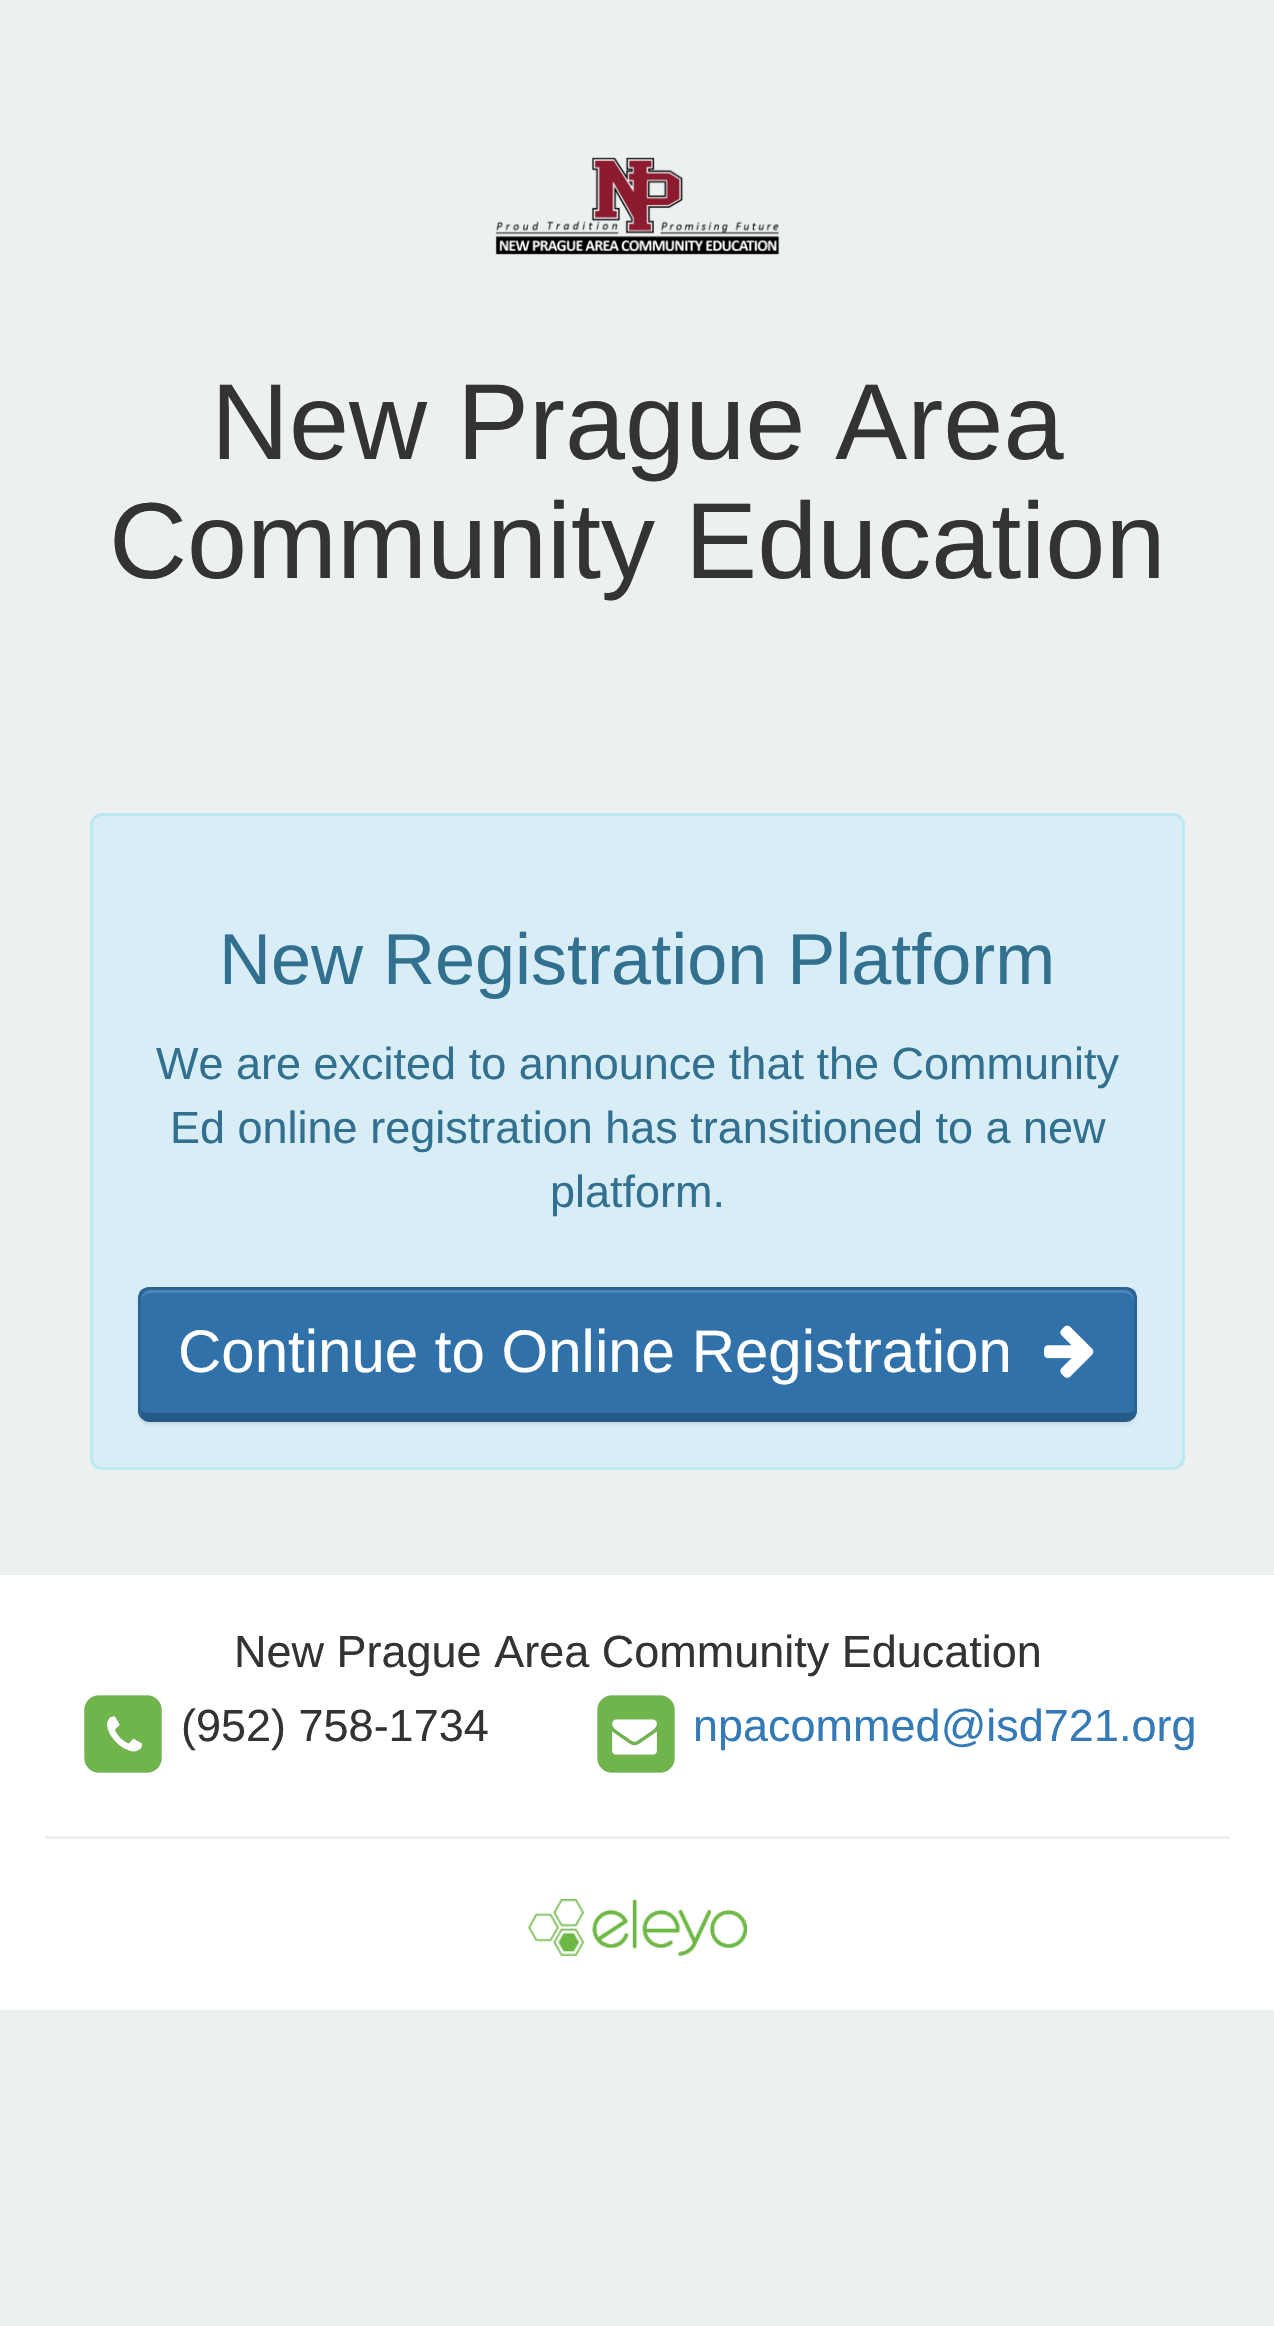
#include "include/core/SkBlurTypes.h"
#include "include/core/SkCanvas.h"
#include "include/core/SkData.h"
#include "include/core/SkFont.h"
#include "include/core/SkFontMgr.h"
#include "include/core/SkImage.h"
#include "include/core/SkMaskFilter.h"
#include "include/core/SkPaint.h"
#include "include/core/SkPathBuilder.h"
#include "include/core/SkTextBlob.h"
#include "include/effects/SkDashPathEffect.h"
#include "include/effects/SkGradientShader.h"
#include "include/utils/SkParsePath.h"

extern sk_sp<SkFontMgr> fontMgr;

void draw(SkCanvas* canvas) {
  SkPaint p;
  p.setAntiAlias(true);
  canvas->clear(SkColorSetRGB(237, 240, 240));
  canvas->drawImageRect(SkImages::DeferredFromEncodedData(SkData::MakeFromFileName("images/1.png")), SkRect::MakeLTRB(495, 157, 780, 255), SkSamplingOptions());
  p.setColor(SkColorSetRGB(217, 237, 247));
  canvas->drawRoundRect(SkRect::MakeLTRB(91.5f, 814.5f, 1183.5f, 1468.5f), 10.5f, 10.5f, p);
  p.setStyle(SkPaint::kStroke_Style);
  p.setStrokeWidth(3);
  p.setColor(SkColorSetRGB(188, 232, 241));
  canvas->drawRoundRect(SkRect::MakeLTRB(91.5f, 814.5f, 1183.5f, 1468.5f), 10.5f, 10.5f, p);
  p.setStyle(SkPaint::kFill_Style);
  p.setColor(SkColorSetARGB(18, 0, 0, 0));
  p.setMaskFilter(SkMaskFilter::MakeBlur(kNormal_SkBlurStyle, 1.5f));
  canvas->drawRoundRect(SkRect::MakeLTRB(138, 1290, 1137, 1425), 12, 12, p);
  p.setMaskFilter(nullptr);
  p.setColor(SkColorSetRGB(48, 113, 169));
  canvas->drawRoundRect(SkRect::MakeLTRB(138, 1287, 1137, 1422), 12, 12, p);
  p.setColor(SkColorSetRGB(79, 134, 182));
  canvas->drawPath(SkPathBuilder().moveTo(150, 1293).lineTo(1125, 1293).cubicTo(1130, 1293, 1134, 1297, 1134, 1302).cubicTo(1134, 1296, 1132, 1290, 1125, 1290).lineTo(150, 1290).cubicTo(143, 1290, 141, 1296, 141, 1302).cubicTo(141, 1297, 145, 1293, 150, 1293).close().detach(), p);
  p.setColor(SkColorSetRGB(42, 100, 149));
  canvas->drawPath(SkPathBuilder().moveTo(150, 1287).cubicTo(146, 1287, 144, 1288, 141, 1290).lineTo(144, 1293).cubicTo(145, 1291, 148, 1290, 150, 1290).lineTo(1125, 1290).cubicTo(1128, 1290, 1130, 1291, 1131, 1293).lineTo(1134, 1290).cubicTo(1132, 1288, 1128, 1287, 1125, 1287).close().detach(), p);
  canvas->drawPath(SkPathBuilder().moveTo(1137, 1410).lineTo(1137, 1299).cubicTo(1137, 1296, 1136, 1292, 1134, 1290).lineTo(1131, 1293).cubicTo(1133, 1294, 1134, 1296, 1134, 1298).lineTo(1134, 1410).lineTo(1133, 1411).lineTo(1135, 1417).cubicTo(1136, 1415, 1137, 1413, 1137, 1410).close().detach(), p);
  p.setColor(SkColorSetARGB(51, 0, 0, 0));
  canvas->drawPath(SkPathBuilder().moveTo(150, 1422).lineTo(1125, 1422).cubicTo(1129, 1422, 1133, 1420, 1135, 1417).lineTo(1133, 1411).cubicTo(1132, 1412, 1129, 1413, 1125, 1413).lineTo(150, 1413).cubicTo(146, 1413, 143, 1412, 142, 1411).lineTo(140, 1417).cubicTo(142, 1420, 146, 1422, 150, 1422).close().detach(), p);
  p.setColor(SkColorSetRGB(42, 100, 149));
  canvas->drawPath(SkPathBuilder().moveTo(138, 1299).lineTo(138, 1410).cubicTo(138, 1413, 139, 1415, 140, 1417).lineTo(142, 1411).lineTo(141, 1410).lineTo(141, 1298).cubicTo(141, 1296, 142, 1294, 144, 1293).lineTo(141, 1290).cubicTo(139, 1292, 138, 1296, 138, 1299).close().detach(), p);
  canvas->drawImageRect(SkImages::DeferredFromEncodedData(SkData::MakeFromFileName("images/2.png")), SkRect::MakeLTRB(1044, 1325, 1094, 1378), SkSamplingOptions());
  p.setColor(SK_ColorWHITE);
  canvas->drawRect(SkRect::MakeLTRB(0, 1575, 1274, 2010), p);
  canvas->drawImageRect(SkImages::DeferredFromEncodedData(SkData::MakeFromFileName("images/3.png")), SkRect::MakeLTRB(84, 1695, 162, 1773), SkSamplingOptions());
  canvas->drawImageRect(SkImages::DeferredFromEncodedData(SkData::MakeFromFileName("images/4.png")), SkRect::MakeLTRB(106, 1716, 143, 1752), SkSamplingOptions());
  canvas->drawImageRect(SkImages::DeferredFromEncodedData(SkData::MakeFromFileName("images/3.png")), SkRect::MakeLTRB(597, 1695, 675, 1773), SkSamplingOptions());
  canvas->drawImageRect(SkImages::DeferredFromEncodedData(SkData::MakeFromFileName("images/5.png")), SkRect::MakeLTRB(611, 1719, 658, 1755), SkSamplingOptions());
  p.setColor(SkColorSetRGB(238, 238, 238));
  canvas->drawRect(SkRect::MakeLTRB(45, 1836, 1230, 1839), p);
  canvas->drawImageRect(SkImages::DeferredFromEncodedData(SkData::MakeFromFileName("images/6.png")), SkRect::MakeLTRB(528, 1899, 747, 1956), SkSamplingOptions());
  SkFont font1(fontMgr->matchFamilyStyle("Liberation Sans", SkFontStyle::Normal()), 108);
  font1.setSubpixel(true);
  p.setColor(SkColorSetRGB(51, 51, 51));
  canvas->drawString("New Prague Area", 211, 459, font1, p);
  canvas->drawString("Community Education", 109, 578, font1, p);
  SkFont font2(fontMgr->matchFamilyStyle("Liberation Sans", SkFontStyle::Normal()), 72);
  font2.setSubpixel(true);
  p.setColor(SkColorSetRGB(49, 112, 143));
  canvas->drawString("New Registration Platform", 219, 984, font2, p);
  SkFont font3(fontMgr->matchFamilyStyle("Liberation Sans", SkFontStyle::Normal()), 45);
  font3.setSubpixel(true);
  canvas->drawString("We are excited to announce that the Community", 156, 1079, font3, p);
  canvas->drawString("Ed online registration has transitioned to a new", 170, 1143, font3, p);
  canvas->drawString("platform.", 550, 1207, font3, p);
  SkFont font4(fontMgr->matchFamilyStyle("Liberation Sans", SkFontStyle::Normal()), 60);
  font4.setSubpixel(true);
  p.setColor(SK_ColorWHITE);
  canvas->drawString("Continue to Online Registration", 178, 1372, font4, p);
  p.setColor(SkColorSetRGB(51, 51, 51));
  canvas->drawString("New Prague Area Community Education", 234, 1667, font3, p);
  canvas->drawString("(952) 758-1734", 181, 1741, font3, p);
  p.setColor(SkColorSetRGB(51, 122, 183));
  canvas->drawString("npacommed@isd721.org", 693, 1741, font3, p);
}
